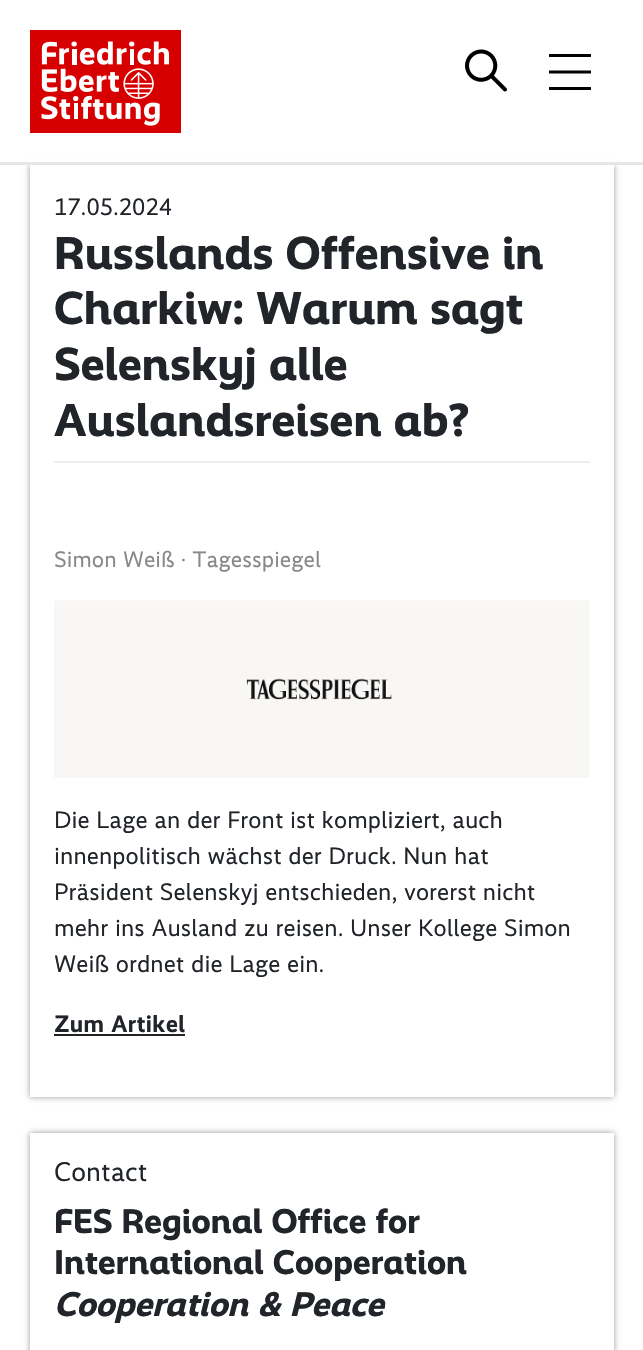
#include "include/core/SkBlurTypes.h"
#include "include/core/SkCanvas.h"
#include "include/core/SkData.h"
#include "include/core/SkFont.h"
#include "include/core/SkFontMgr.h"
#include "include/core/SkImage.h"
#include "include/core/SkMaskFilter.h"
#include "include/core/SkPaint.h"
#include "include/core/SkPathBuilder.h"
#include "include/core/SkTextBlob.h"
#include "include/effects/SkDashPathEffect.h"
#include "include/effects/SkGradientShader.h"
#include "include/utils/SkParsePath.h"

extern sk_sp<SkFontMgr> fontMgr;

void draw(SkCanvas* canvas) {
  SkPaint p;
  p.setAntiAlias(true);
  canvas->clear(SK_ColorWHITE);
  p.setColor(SkColorSetARGB(102, 0, 0, 0));
  p.setMaskFilter(SkMaskFilter::MakeBlur(kNormal_SkBlurStyle, 3));
  canvas->drawRect(SkRect::MakeLTRB(30, 165, 614, 1097), p);
  p.setMaskFilter(nullptr);
  p.setColor(SK_ColorWHITE);
  canvas->drawRect(SkRect::MakeLTRB(28, 159, 616, 162), p);
  p.setColor(SkColorSetRGB(230, 230, 230));
  canvas->drawRect(SkRect::MakeLTRB(0, 162, 643, 165), p);
  canvas->drawImageRect(SkImages::DeferredFromEncodedData(SkData::MakeFromFileName("images/1.png")), SkRect::MakeLTRB(30, 30, 181, 133), SkSamplingOptions());
  canvas->drawImageRect(SkImages::DeferredFromEncodedData(SkData::MakeFromFileName("images/2.png")), SkRect::MakeLTRB(465, 49, 507, 92), SkSamplingOptions());
  p.setColor(SK_ColorBLACK);
  canvas->drawRect(SkRect::MakeLTRB(549, 54, 591, 57), p);
  p.setStyle(SkPaint::kStroke_Style);
  p.setStrokeWidth(3);
  canvas->drawPath(SkPathBuilder().moveTo(549, 72).lineTo(591, 72).detach(), p);
  p.setStyle(SkPaint::kFill_Style);
  canvas->drawRect(SkRect::MakeLTRB(549, 87, 591, 90), p);
  p.setColor(SK_ColorWHITE);
  canvas->drawRect(SkRect::MakeLTRB(30, 165, 614, 1097), p);
  p.setColor(SkColorSetRGB(238, 238, 238));
  canvas->drawRect(SkRect::MakeLTRB(54, 461, 590, 463), p);
  canvas->drawImageRect(SkImages::DeferredFromEncodedData(SkData::MakeFromFileName("images/3.png")), SkRect::MakeLTRB(54, 600, 590, 778), SkSamplingOptions());
  p.setColor(SkColorSetRGB(33, 37, 41));
  canvas->drawRect(SkRect::MakeLTRB(54, 1034, 185, 1036), p);
  p.setColor(SkColorSetARGB(102, 0, 0, 0));
  p.setMaskFilter(SkMaskFilter::MakeBlur(kNormal_SkBlurStyle, 3));
  canvas->drawRect(SkRect::MakeLTRB(30, 1133, 614, 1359), p);
  p.setMaskFilter(nullptr);
  p.setColor(SK_ColorWHITE);
  canvas->drawRect(SkRect::MakeLTRB(30, 1133, 614, 1350), p);
  SkFont font1(fontMgr->matchFamilyStyle("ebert", SkFontStyle::Normal()), 24);
  font1.setSubpixel(true);
  p.setColor(SkColorSetRGB(33, 37, 41));
  canvas->drawString("17.05.2024", 54, 215, font1, p);
  SkFont font2(fontMgr->matchFamilyStyle("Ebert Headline", SkFontStyle::Bold()), 46.5f);
  font2.setSubpixel(true);
  canvas->drawString("Russlands Offensive in", 54, 269, font2, p);
  canvas->drawString("Charkiw: Warum sagt", 54, 324, font2, p);
  canvas->drawString("Selenskyj alle", 54, 380, font2, p);
  canvas->drawString("Auslandsreisen ab?", 54, 436, font2, p);
  SkFont font3(fontMgr->matchFamilyStyle("ebert", SkFontStyle::Normal()), 22.5f);
  font3.setSubpixel(true);
  p.setColor(SkColorSetRGB(136, 136, 136));
  canvas->drawString("Simon Weiß · Tagesspiegel", 54, 567, font3, p);
  p.setColor(SkColorSetRGB(33, 37, 41));
  canvas->drawString("Die Lage an der Front ist kompliziert, auch", 54, 828, font1, p);
  canvas->drawString("innenpolitisch wächst der Druck. Nun hat", 54, 864, font1, p);
  canvas->drawString("Präsident Selenskyj entschieden, vorerst nicht", 54, 900, font1, p);
  canvas->drawString("mehr ins Ausland zu reisen. Unser Kollege Simon", 54, 936, font1, p);
  canvas->drawString("Weiß ordnet die Lage ein.", 54, 972, font1, p);
  SkFont font4(fontMgr->matchFamilyStyle("ebert", SkFontStyle::Bold()), 24);
  font4.setSubpixel(true);
  canvas->drawString("Zum Artikel", 54, 1032, font4, p);
  SkFont font5(fontMgr->matchFamilyStyle("ebert", SkFontStyle::Normal()), 27);
  font5.setSubpixel(true);
  canvas->drawString("Contact", 54, 1181, font5, p);
  SkFont font6(fontMgr->matchFamilyStyle("Ebert Headline", SkFontStyle::Bold()), 34.5f);
  font6.setSubpixel(true);
  canvas->drawString("FES Regional Office for", 54, 1233, font6, p);
  canvas->drawString("International Cooperation", 54, 1274, font6, p);
  SkFont font7(fontMgr->matchFamilyStyle("Ebert Headline", SkFontStyle::BoldItalic()), 34.5f);
  font7.setSubpixel(true);
  canvas->drawString("Cooperation & Peace", 54, 1316, font7, p);
}
